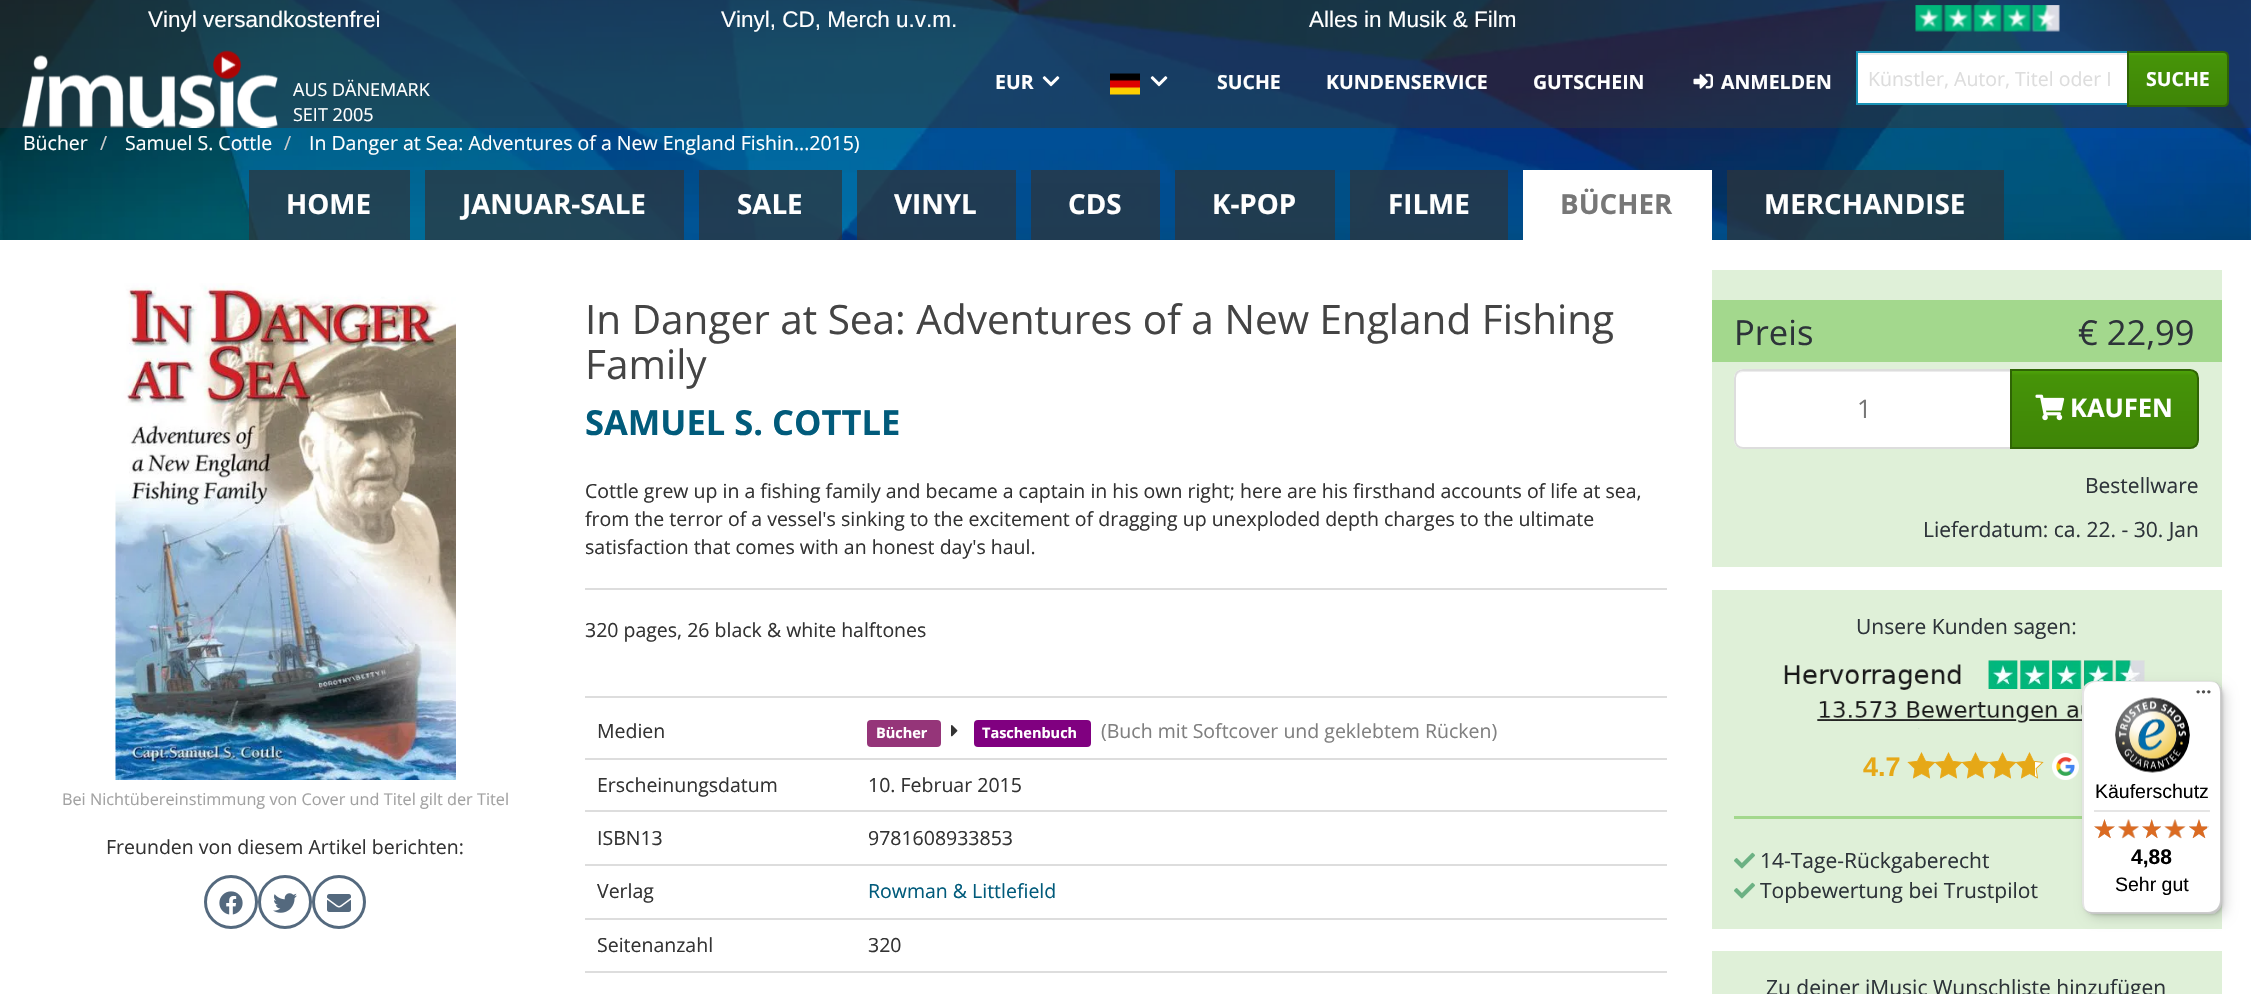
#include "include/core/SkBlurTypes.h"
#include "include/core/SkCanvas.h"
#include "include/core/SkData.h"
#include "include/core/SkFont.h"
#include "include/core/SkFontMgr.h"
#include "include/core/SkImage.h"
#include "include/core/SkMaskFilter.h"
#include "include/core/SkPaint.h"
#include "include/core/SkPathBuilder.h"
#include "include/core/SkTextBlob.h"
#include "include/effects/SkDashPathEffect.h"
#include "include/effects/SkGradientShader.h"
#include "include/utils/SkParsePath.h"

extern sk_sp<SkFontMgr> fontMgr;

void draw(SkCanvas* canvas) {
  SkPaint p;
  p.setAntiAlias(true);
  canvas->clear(SK_ColorWHITE);
  canvas->drawImageRect(SkImages::DeferredFromEncodedData(SkData::MakeFromFileName("images/1.png")), SkRect::MakeLTRB(0, 0, 2251, 240), SkSamplingOptions());
  p.setColor(SkColorSetARGB(128, 45, 51, 57));
  canvas->drawRect(SkRect::MakeLTRB(0, 0, 2251, 128), p);
  canvas->drawImageRect(SkImages::DeferredFromEncodedData(SkData::MakeFromFileName("images/2.png")), SkRect::MakeLTRB(1915, 5, 2060, 32), SkSamplingOptions());
  canvas->drawImageRect(SkImages::DeferredFromEncodedData(SkData::MakeFromFileName("images/3.png")), SkRect::MakeLTRB(22, 50, 278, 128), SkSamplingOptions());
  canvas->drawImageRect(SkImages::DeferredFromEncodedData(SkData::MakeFromFileName("images/4.png")), SkRect::MakeLTRB(1042, 76, 1060, 87), SkSamplingOptions());
  canvas->drawImageRect(SkImages::DeferredFromEncodedData(SkData::MakeFromFileName("images/5.png")), SkRect::MakeLTRB(1110, 73, 1140, 95), SkSamplingOptions());
  canvas->drawImageRect(SkImages::DeferredFromEncodedData(SkData::MakeFromFileName("images/6.png")), SkRect::MakeLTRB(1150, 76, 1168, 87), SkSamplingOptions());
  canvas->drawImageRect(SkImages::DeferredFromEncodedData(SkData::MakeFromFileName("images/7.png")), SkRect::MakeLTRB(1693, 73, 1713, 89), SkSamplingOptions());
  p.setColor(SK_ColorWHITE);
  canvas->drawRect(SkRect::MakeLTRB(1858, 53, 2127, 103), p);
  p.setColor(SkColorSetARGB(18, 0, 0, 0));
  canvas->drawRect(SkRect::MakeLTRB(1857, 53, 2127, 55), p);
  p.setStyle(SkPaint::kStroke_Style);
  p.setStrokeWidth(2);
  p.setColor(SkColorSetRGB(25, 147, 182));
  canvas->drawRect(SkRect::MakeLTRB(1857, 52, 2128, 104), p);
  p.setStyle(SkPaint::kFill_Style);
  {
    const SkColor colors[] = {SkColorSetRGB(77, 163, 9), SkColorSetRGB(70, 148, 8), SkColorSetRGB(63, 133, 7)};
    const float stops[] = {0, 0.06f, 1};
    const SkPoint ends[] = {{2178, 53}, {2178, 105}};
    p.setShader(SkGradientShader::MakeLinear(ends, colors, stops, 3, SkTileMode::kClamp));
    p.setAlpha(255);
  }
  canvas->drawRect(SkRect::MakeLTRB(2129, 53, 2228, 105), p);
  p.setStyle(SkPaint::kStroke_Style);
  p.setShader(nullptr);
  p.setColor(SkColorSetRGB(47, 100, 5));
  canvas->drawPath(SkPathBuilder().moveTo(2128, 52).lineTo(2223, 52).cubicTo(2226, 52, 2228, 54, 2228, 57).lineTo(2228, 101).cubicTo(2228, 104, 2226, 106, 2223, 106).lineTo(2128, 106).close().detach(), p);
  p.setStyle(SkPaint::kFill_Style);
  p.setColor(SkColorSetARGB(179, 45, 51, 57));
  canvas->drawRect(SkRect::MakeLTRB(249, 170, 410, 240), p);
  canvas->drawRect(SkRect::MakeLTRB(425, 170, 684, 240), p);
  canvas->drawRect(SkRect::MakeLTRB(699, 170, 842, 240), p);
  canvas->drawRect(SkRect::MakeLTRB(857, 170, 1016, 240), p);
  canvas->drawRect(SkRect::MakeLTRB(1031, 170, 1160, 240), p);
  canvas->drawRect(SkRect::MakeLTRB(1175, 170, 1335, 240), p);
  canvas->drawRect(SkRect::MakeLTRB(1350, 170, 1508, 240), p);
  p.setColor(SK_ColorWHITE);
  canvas->drawRect(SkRect::MakeLTRB(1523, 170, 1712, 240), p);
  p.setColor(SkColorSetARGB(179, 45, 51, 57));
  canvas->drawRect(SkRect::MakeLTRB(1727, 170, 2004, 240), p);
  canvas->drawImageRect(SkImages::DeferredFromEncodedData(SkData::MakeFromFileName("images/8.png")), SkRect::MakeLTRB(115, 283, 456, 780), SkSamplingOptions());
  p.setStyle(SkPaint::kStroke_Style);
  p.setStrokeWidth(3);
  p.setColor(SkColorSetRGB(84, 105, 126));
  canvas->drawCircle(231, 902, 25.5f, p);
  canvas->drawImageRect(SkImages::DeferredFromEncodedData(SkData::MakeFromFileName("images/9.png")), SkRect::MakeLTRB(219, 891, 243, 915), SkSamplingOptions());
  canvas->drawCircle(285, 902, 25.5f, p);
  canvas->drawImageRect(SkImages::DeferredFromEncodedData(SkData::MakeFromFileName("images/10.png")), SkRect::MakeLTRB(273, 893, 297, 913), SkSamplingOptions());
  canvas->drawCircle(339, 902, 25.5f, p);
  canvas->drawImageRect(SkImages::DeferredFromEncodedData(SkData::MakeFromFileName("images/11.png")), SkRect::MakeLTRB(327, 894, 351, 912), SkSamplingOptions());
  p.setStyle(SkPaint::kFill_Style);
  p.setColor(SkColorSetRGB(221, 221, 221));
  canvas->drawRect(SkRect::MakeLTRB(585, 588, 1667, 590), p);
  canvas->drawRect(SkRect::MakeLTRB(585, 696, 1667, 698), p);
  p.setColor(SkColorSetRGB(149, 53, 121));
  canvas->drawRoundRect(SkRect::MakeLTRB(867, 720, 941, 747), 4, 4, p);
  canvas->drawImageRect(SkImages::DeferredFromEncodedData(SkData::MakeFromFileName("images/12.png")), SkRect::MakeLTRB(951, 725, 958, 737), SkSamplingOptions());
  p.setColor(SkColorSetRGB(128, 0, 128));
  canvas->drawRoundRect(SkRect::MakeLTRB(974, 720, 1091, 747), 4, 4, p);
  p.setColor(SkColorSetRGB(221, 221, 221));
  canvas->drawRect(SkRect::MakeLTRB(585, 758, 1667, 760), p);
  canvas->drawRect(SkRect::MakeLTRB(585, 810, 1667, 812), p);
  canvas->drawRect(SkRect::MakeLTRB(585, 864, 1667, 866), p);
  canvas->drawRect(SkRect::MakeLTRB(585, 918, 1667, 920), p);
  canvas->drawRect(SkRect::MakeLTRB(585, 971, 1667, 973), p);
  p.setColor(SkColorSetRGB(223, 240, 216));
  canvas->drawRect(SkRect::MakeLTRB(1712, 270, 2222, 567), p);
  p.setColor(SkColorSetRGB(163, 216, 141));
  canvas->drawRect(SkRect::MakeLTRB(1712, 300, 2222, 362), p);
  p.setColor(SK_ColorWHITE);
  canvas->drawPath(SkPathBuilder().moveTo(1743, 369).lineTo(2012, 369).lineTo(2012, 449).lineTo(1743, 449).cubicTo(1738, 449, 1734, 445, 1734, 440).lineTo(1734, 378).cubicTo(1734, 373, 1738, 369, 1743, 369).close().detach(), p);
  p.setColor(SkColorSetRGB(236, 236, 236));
  canvas->drawPath(SkPathBuilder().moveTo(1743, 372).lineTo(2010, 372).lineTo(2010, 371).lineTo(1744, 371).cubicTo(1739, 371, 1736, 375, 1736, 380).cubicTo(1736, 375, 1739, 372, 1743, 372).close().detach(), p);
  p.setStyle(SkPaint::kStroke_Style);
  p.setStrokeWidth(2);
  p.setColor(SkColorSetRGB(221, 221, 221));
  canvas->drawPath(SkPathBuilder().moveTo(1743, 370).lineTo(2011, 370).lineTo(2011, 448).lineTo(1743, 448).cubicTo(1738.5f, 448, 1735, 444.5f, 1735, 440).lineTo(1735, 378).cubicTo(1735, 373.5f, 1738.5f, 370, 1743, 370).close().detach(), p);
  canvas->save();
  canvas->clipPath(SkPathBuilder().moveTo(2010, 369).lineTo(2190, 369).cubicTo(2195, 369, 2199, 373, 2199, 378).lineTo(2199, 440).cubicTo(2199, 445, 2195, 449, 2190, 449).lineTo(2010, 449).close().detach(), true);
  p.setStyle(SkPaint::kFill_Style);
  {
    const SkColor colors[] = {SkColorSetRGB(77, 163, 9), SkColorSetRGB(70, 148, 8), SkColorSetRGB(63, 133, 7)};
    const float stops[] = {0, 0.06f, 1};
    const SkPoint ends[] = {{2105, 371}, {2105, 447}};
    p.setShader(SkGradientShader::MakeLinear(ends, colors, stops, 3, SkTileMode::kClamp));
    p.setAlpha(255);
  }
  canvas->drawRect(SkRect::MakeLTRB(2012, 371, 2198, 447), p);
  canvas->restore();
  p.setStyle(SkPaint::kStroke_Style);
  p.setShader(nullptr);
  p.setColor(SkColorSetRGB(47, 100, 5));
  canvas->drawPath(SkPathBuilder().moveTo(2011, 370).lineTo(2190, 370).cubicTo(2194.5f, 370, 2198, 373.5f, 2198, 378).lineTo(2198, 440).cubicTo(2198, 444.5f, 2194.5f, 448, 2190, 448).lineTo(2011, 448).close().detach(), p);
  canvas->drawImageRect(SkImages::DeferredFromEncodedData(SkData::MakeFromFileName("images/13.png")), SkRect::MakeLTRB(2035, 394, 2065, 421), SkSamplingOptions());
  p.setStyle(SkPaint::kFill_Style);
  p.setColor(SkColorSetRGB(223, 240, 216));
  canvas->drawRect(SkRect::MakeLTRB(1712, 590, 2222, 929), p);
  canvas->drawImageRect(SkImages::DeferredFromEncodedData(SkData::MakeFromFileName("images/14.png")), SkRect::MakeLTRB(1784, 660, 2145, 729), SkSamplingOptions());
  canvas->drawImageRect(SkImages::DeferredFromEncodedData(SkData::MakeFromFileName("images/15.png")), SkRect::MakeLTRB(1907, 752, 2044, 779), SkSamplingOptions());
  canvas->drawImageRect(SkImages::DeferredFromEncodedData(SkData::MakeFromFileName("images/16.png")), SkRect::MakeLTRB(2052, 753, 2079, 780), SkSamplingOptions());
  p.setColor(SkColorSetRGB(163, 216, 141));
  canvas->drawRect(SkRect::MakeLTRB(1734, 816, 2082, 819), p);
  canvas->drawImageRect(SkImages::DeferredFromEncodedData(SkData::MakeFromFileName("images/17.png")), SkRect::MakeLTRB(1734, 852, 1755, 869), SkSamplingOptions());
  canvas->drawImageRect(SkImages::DeferredFromEncodedData(SkData::MakeFromFileName("images/17.png")), SkRect::MakeLTRB(1734, 882, 1755, 899), SkSamplingOptions());
  p.setColor(SkColorSetRGB(223, 240, 216));
  canvas->drawRect(SkRect::MakeLTRB(1712, 951, 2222, 994), p);
  p.setColor(SkColorSetARGB(38, 0, 0, 0));
  p.setMaskFilter(SkMaskFilter::MakeBlur(kNormal_SkBlurStyle, 6));
  canvas->drawRoundRect(SkRect::MakeLTRB(2087, 686, 2226, 918), 12, 12, p);
  p.setMaskFilter(nullptr);
  p.setMaskFilter(SkMaskFilter::MakeBlur(kNormal_SkBlurStyle, 1.5f));
  canvas->drawRoundRect(SkRect::MakeLTRB(2084, 683, 2223, 915), 12, 12, p);
  p.setMaskFilter(nullptr);
  p.setColor(SK_ColorWHITE);
  canvas->drawRoundRect(SkRect::MakeLTRB(2082, 681, 2222, 914), 12, 12, p);
  p.setColor(SkColorSetARGB(26, 0, 0, 0));
  canvas->drawPath(SkPathBuilder().moveTo(2096, 682).lineTo(2211, 682).cubicTo(2214, 682, 2217, 683, 2219, 685).cubicTo(2217, 683, 2214, 681, 2210, 681).lineTo(2094, 681).cubicTo(2087, 681, 2082, 686, 2082, 693).lineTo(2082, 902).cubicTo(2082, 907, 2085, 911, 2089, 913).cubicTo(2086, 911, 2084, 907, 2084, 903).lineTo(2084, 694).cubicTo(2084, 688, 2089, 682, 2096, 682).close().detach(), p);
  p.setColor(SkColorSetARGB(51, 0, 0, 0));
  canvas->drawPath(SkPathBuilder().moveTo(2084, 909).cubicTo(2087, 912, 2090, 914, 2094, 914).lineTo(2210, 914).cubicTo(2217, 914, 2222, 909, 2222, 902).lineTo(2222, 693).cubicTo(2222, 688, 2219, 684, 2215, 682).cubicTo(2218, 684, 2220, 688, 2220, 692).lineTo(2220, 900).cubicTo(2220, 907, 2215, 912, 2208, 912).lineTo(2092, 912).cubicTo(2089, 912, 2087, 911, 2084, 909).close().detach(), p);
  p.setColor(SkColorSetARGB(51, 50, 50, 50));
  canvas->drawPath(SkPathBuilder().moveTo(2085, 910).cubicTo(2087, 912, 2090, 914, 2094, 914).lineTo(2210, 914).cubicTo(2217, 914, 2222, 909, 2222, 902).lineTo(2222, 693).cubicTo(2222, 689, 2220, 686, 2218, 684).cubicTo(2220, 686, 2221, 689, 2221, 692).lineTo(2221, 901).cubicTo(2221, 907, 2215, 913, 2209, 913).lineTo(2093, 913).cubicTo(2090, 913, 2087, 912, 2085, 910).close().detach(), p);
  p.setColor(SkColorSetARGB(77, 255, 255, 255));
  canvas->drawPath(SkPathBuilder().moveTo(2084, 908).cubicTo(2086, 912, 2089, 914, 2094, 914).lineTo(2210, 914).cubicTo(2217, 914, 2222, 909, 2222, 902).lineTo(2222, 693).cubicTo(2222, 688, 2220, 685, 2216, 683).cubicTo(2219, 685, 2221, 688, 2221, 692).lineTo(2221, 901).cubicTo(2221, 907, 2215, 913, 2209, 913).lineTo(2093, 913).cubicTo(2089, 913, 2086, 911, 2084, 908).close().detach(), p);
  canvas->drawImageRect(SkImages::DeferredFromEncodedData(SkData::MakeFromFileName("images/18.png")), SkRect::MakeLTRB(2196, 690, 2211, 694), SkSamplingOptions());
  canvas->drawImageRect(SkImages::DeferredFromEncodedData(SkData::MakeFromFileName("images/19.png")), SkRect::MakeLTRB(2115, 697, 2190, 773), SkSamplingOptions());
  p.setColor(SkColorSetRGB(229, 229, 229));
  canvas->drawRect(SkRect::MakeLTRB(2094, 810, 2210, 812), p);
  canvas->drawImageRect(SkImages::DeferredFromEncodedData(SkData::MakeFromFileName("images/20.png")), SkRect::MakeLTRB(2094, 819, 2115, 838), SkSamplingOptions());
  canvas->drawImageRect(SkImages::DeferredFromEncodedData(SkData::MakeFromFileName("images/21.png")), SkRect::MakeLTRB(2118, 819, 2139, 839), SkSamplingOptions());
  canvas->drawImageRect(SkImages::DeferredFromEncodedData(SkData::MakeFromFileName("images/22.png")), SkRect::MakeLTRB(2142, 819, 2161, 838), SkSamplingOptions());
  canvas->drawImageRect(SkImages::DeferredFromEncodedData(SkData::MakeFromFileName("images/23.png")), SkRect::MakeLTRB(2165, 819, 2185, 839), SkSamplingOptions());
  canvas->drawImageRect(SkImages::DeferredFromEncodedData(SkData::MakeFromFileName("images/24.png")), SkRect::MakeLTRB(2189, 819, 2209, 838), SkSamplingOptions());
  canvas->drawImageRect(SkImages::DeferredFromEncodedData(SkData::MakeFromFileName("images/25.png")), SkRect::MakeLTRB(2094, 819, 2115, 839), SkSamplingOptions());
  canvas->drawImageRect(SkImages::DeferredFromEncodedData(SkData::MakeFromFileName("images/26.png")), SkRect::MakeLTRB(2118, 819, 2139, 838), SkSamplingOptions());
  canvas->drawImageRect(SkImages::DeferredFromEncodedData(SkData::MakeFromFileName("images/27.png")), SkRect::MakeLTRB(2142, 819, 2162, 839), SkSamplingOptions());
  canvas->drawImageRect(SkImages::DeferredFromEncodedData(SkData::MakeFromFileName("images/28.png")), SkRect::MakeLTRB(2164, 819, 2186, 838), SkSamplingOptions());
  canvas->drawImageRect(SkImages::DeferredFromEncodedData(SkData::MakeFromFileName("images/29.png")), SkRect::MakeLTRB(2189, 819, 2207, 839), SkSamplingOptions());
  SkFont font1(fontMgr->matchFamilyStyle("Liberation Sans", SkFontStyle::Normal()), 22.5f);
  font1.setSubpixel(true);
  p.setColor(SK_ColorWHITE);
  canvas->drawString("Vinyl versandkostenfrei", 148, 27, font1, p);
  canvas->drawString("Vinyl, CD, Merch u.v.m.", 721, 27, font1, p);
  canvas->drawString("Alles in Musik & Film", 1309, 27, font1, p);
  SkFont font2(fontMgr->matchFamilyStyle("Open Sans", SkFontStyle::Normal()), 18);
  font2.setSubpixel(true);
  canvas->drawString("AUS DÄNEMARK", 293, 96, font2, p);
  canvas->drawString("SEIT 2005", 293, 121, font2, p);
  SkFont font3(fontMgr->matchFamilyStyle("Open Sans", SkFontStyle::Bold()), 19.5f);
  font3.setSubpixel(true);
  canvas->drawString("EUR", 995, 89, font3, p);
  canvas->drawString("SUCHE", 1217, 89, font3, p);
  canvas->drawString("KUNDENSERVICE", 1326, 89, font3, p);
  canvas->drawString("GUTSCHEIN", 1533, 89, font3, p);
  canvas->drawString("ANMELDEN", 1721, 89, font3, p);
  SkFont font4(fontMgr->matchFamilyStyle("Open Sans", SkFontStyle::Normal()), 19.5f);
  font4.setSubpixel(true);
  p.setColor(SkColorSetRGB(221, 221, 221));
  canvas->drawString("Künstler, Autor, Titel oder I", 1868, 86, font4, p);
  p.setColor(SK_ColorWHITE);
  canvas->drawString("SUCHE", 2146, 86, font3, p);
  canvas->drawString("Bücher", 23, 150, font4, p);
  p.setColor(SkColorSetRGB(204, 204, 204));
  canvas->drawString("/", 100, 150, font4, p);
  p.setColor(SK_ColorWHITE);
  canvas->drawString("Samuel S. Cottle", 125, 150, font4, p);
  p.setColor(SkColorSetRGB(204, 204, 204));
  canvas->drawString("/", 284, 150, font4, p);
  p.setColor(SK_ColorWHITE);
  canvas->drawString("In Danger at Sea: Adventures of a New England Fishin...2015)", 309, 150, font4, p);
  SkFont font5(fontMgr->matchFamilyStyle("Open Sans", SkFontStyle::Bold()), 27.75f);
  font5.setSubpixel(true);
  canvas->drawString("HOME", 286, 214, font5, p);
  canvas->drawString("JANUAR-SALE", 462, 214, font5, p);
  canvas->drawString("SALE", 737, 214, font5, p);
  canvas->drawString("VINYL", 894, 214, font5, p);
  canvas->drawString("CDS", 1068, 214, font5, p);
  canvas->drawString("K-POP", 1212, 214, font5, p);
  canvas->drawString("FILME", 1388, 214, font5, p);
  p.setColor(SkColorSetRGB(119, 119, 119));
  canvas->drawString("BÜCHER", 1560, 214, font5, p);
  p.setColor(SK_ColorWHITE);
  canvas->drawString("MERCHANDISE", 1764, 214, font5, p);
  SkFont font6(fontMgr->matchFamilyStyle("Open Sans", SkFontStyle::Normal()), 16.25f);
  font6.setSubpixel(true);
  p.setColor(SkColorSetRGB(162, 162, 162));
  canvas->drawString("Bei Nichtübereinstimmung von Cover und Titel gilt der Titel", 62, 805, font6, p);
  p.setColor(SkColorSetRGB(51, 51, 51));
  canvas->drawString("Freunden von diesem Artikel berichten:", 106, 854, font4, p);
  SkFont font7(fontMgr->matchFamilyStyle("Open Sans", SkFontStyle::Normal()), 40.5f);
  font7.setSubpixel(true);
  p.setColor(SkColorSetRGB(68, 68, 68));
  canvas->drawString("In Danger at Sea: Adventures of a New England Fishing", 585, 334, font7, p);
  canvas->drawString("Family", 585, 379, font7, p);
  SkFont font8(fontMgr->matchFamilyStyle("Open Sans", SkFontStyle::Bold()), 34.5f);
  font8.setSubpixel(true);
  p.setColor(SkColorSetRGB(1, 91, 123));
  canvas->drawString("SAMUEL S. COTTLE", 585, 435, font8, p);
  p.setColor(SkColorSetRGB(51, 51, 51));
  canvas->drawString("Cottle grew up in a fishing family and became a captain in his own right; here are his firsthand accounts of life at sea,", 585, 498, font4, p);
  canvas->drawString("from the terror of a vessel's sinking to the excitement of dragging up unexploded depth charges to the ultimate", 585, 526, font4, p);
  canvas->drawString("satisfaction that comes with an honest day's haul.", 585, 554, font4, p);
  canvas->drawString("320 pages, 26 black & white halftones", 585, 637, font4, p);
  canvas->drawString("Medien", 597, 738, font4, p);
  SkFont font9(fontMgr->matchFamilyStyle("Open Sans", SkFontStyle::Bold()), 14.5f);
  font9.setSubpixel(true);
  p.setColor(SK_ColorWHITE);
  canvas->drawString("Bücher", 876, 738, font9, p);
  canvas->drawString("Taschenbuch", 982, 738, font9, p);
  p.setColor(SkColorSetRGB(128, 128, 128));
  canvas->drawString("(Buch mit Softcover und geklebtem Rücken)", 1101, 738, font4, p);
  p.setColor(SkColorSetRGB(51, 51, 51));
  canvas->drawString("Erscheinungsdatum", 597, 792, font4, p);
  canvas->drawString("10. Februar 2015", 868, 792, font4, p);
  canvas->drawString("ISBN13", 597, 845, font4, p);
  canvas->drawString("9781608933853", 868, 845, font4, p);
  canvas->drawString("Verlag", 597, 898, font4, p);
  p.setColor(SkColorSetRGB(1, 91, 123));
  canvas->drawString("Rowman & Littlefield", 868, 898, font4, p);
  p.setColor(SkColorSetRGB(51, 51, 51));
  canvas->drawString("Seitenanzahl", 597, 952, font4, p);
  canvas->drawString("320", 868, 952, font4, p);
  SkFont font10(fontMgr->matchFamilyStyle("Open Sans", SkFontStyle::Normal()), 34.5f);
  font10.setSubpixel(true);
  p.setColor(SkColorSetRGB(45, 51, 57));
  canvas->drawString("Preis", 1734, 345, font10, p);
  canvas->drawString("€ 22,99", 2078, 345, font10, p);
  SkFont font11(fontMgr->matchFamilyStyle("Open Sans", SkFontStyle::Normal()), 25.5f);
  font11.setSubpixel(true);
  p.setColor(SkColorSetRGB(119, 119, 119));
  canvas->drawString("1", 1857, 418, font11, p);
  SkFont font12(fontMgr->matchFamilyStyle("Open Sans", SkFontStyle::Bold()), 25.5f);
  font12.setSubpixel(true);
  p.setColor(SK_ColorWHITE);
  canvas->drawString("KAUFEN", 2070, 417, font12, p);
  SkFont font13(fontMgr->matchFamilyStyle("Open Sans", SkFontStyle::Normal()), 21);
  font13.setSubpixel(true);
  p.setColor(SkColorSetRGB(45, 51, 57));
  canvas->drawString("Bestellware", 2085, 493, font13, p);
  canvas->drawString("Lieferdatum: ca. 22. - 30. Jan", 1923, 537, font13, p);
  canvas->drawString("Unsere Kunden sagen:", 1856, 634, font13, p);
  SkFont font14(fontMgr->matchFamilyStyle("Liberation Sans", SkFontStyle::Bold()), 27);
  font14.setSubpixel(true);
  p.setColor(SkColorSetRGB(230, 168, 23));
  canvas->drawString("4.7", 1863, 776, font14, p);
  p.setColor(SkColorSetRGB(45, 51, 57));
  canvas->drawString("14-Tage-Rückgaberecht", 1760, 868, font13, p);
  canvas->drawString("Topbewertung bei Trustpilot", 1760, 898, font13, p);
  canvas->drawString("Zu deiner iMusic Wunschliste hinzufügen", 1766, 995, font13, p);
  SkFont font15(fontMgr->matchFamilyStyle("Liberation Sans", SkFontStyle::Normal()), 19.5f);
  font15.setSubpixel(true);
  p.setColor(SK_ColorBLACK);
  canvas->drawString("Käuferschutz", 2095, 798, font15, p);
  SkFont font16(fontMgr->matchFamilyStyle("Liberation Sans", SkFontStyle::Bold()), 21);
  font16.setSubpixel(true);
  canvas->drawString("4,88", 2131, 864, font16, p);
  canvas->drawString("Sehr gut", 2115, 891, font15, p);
}
